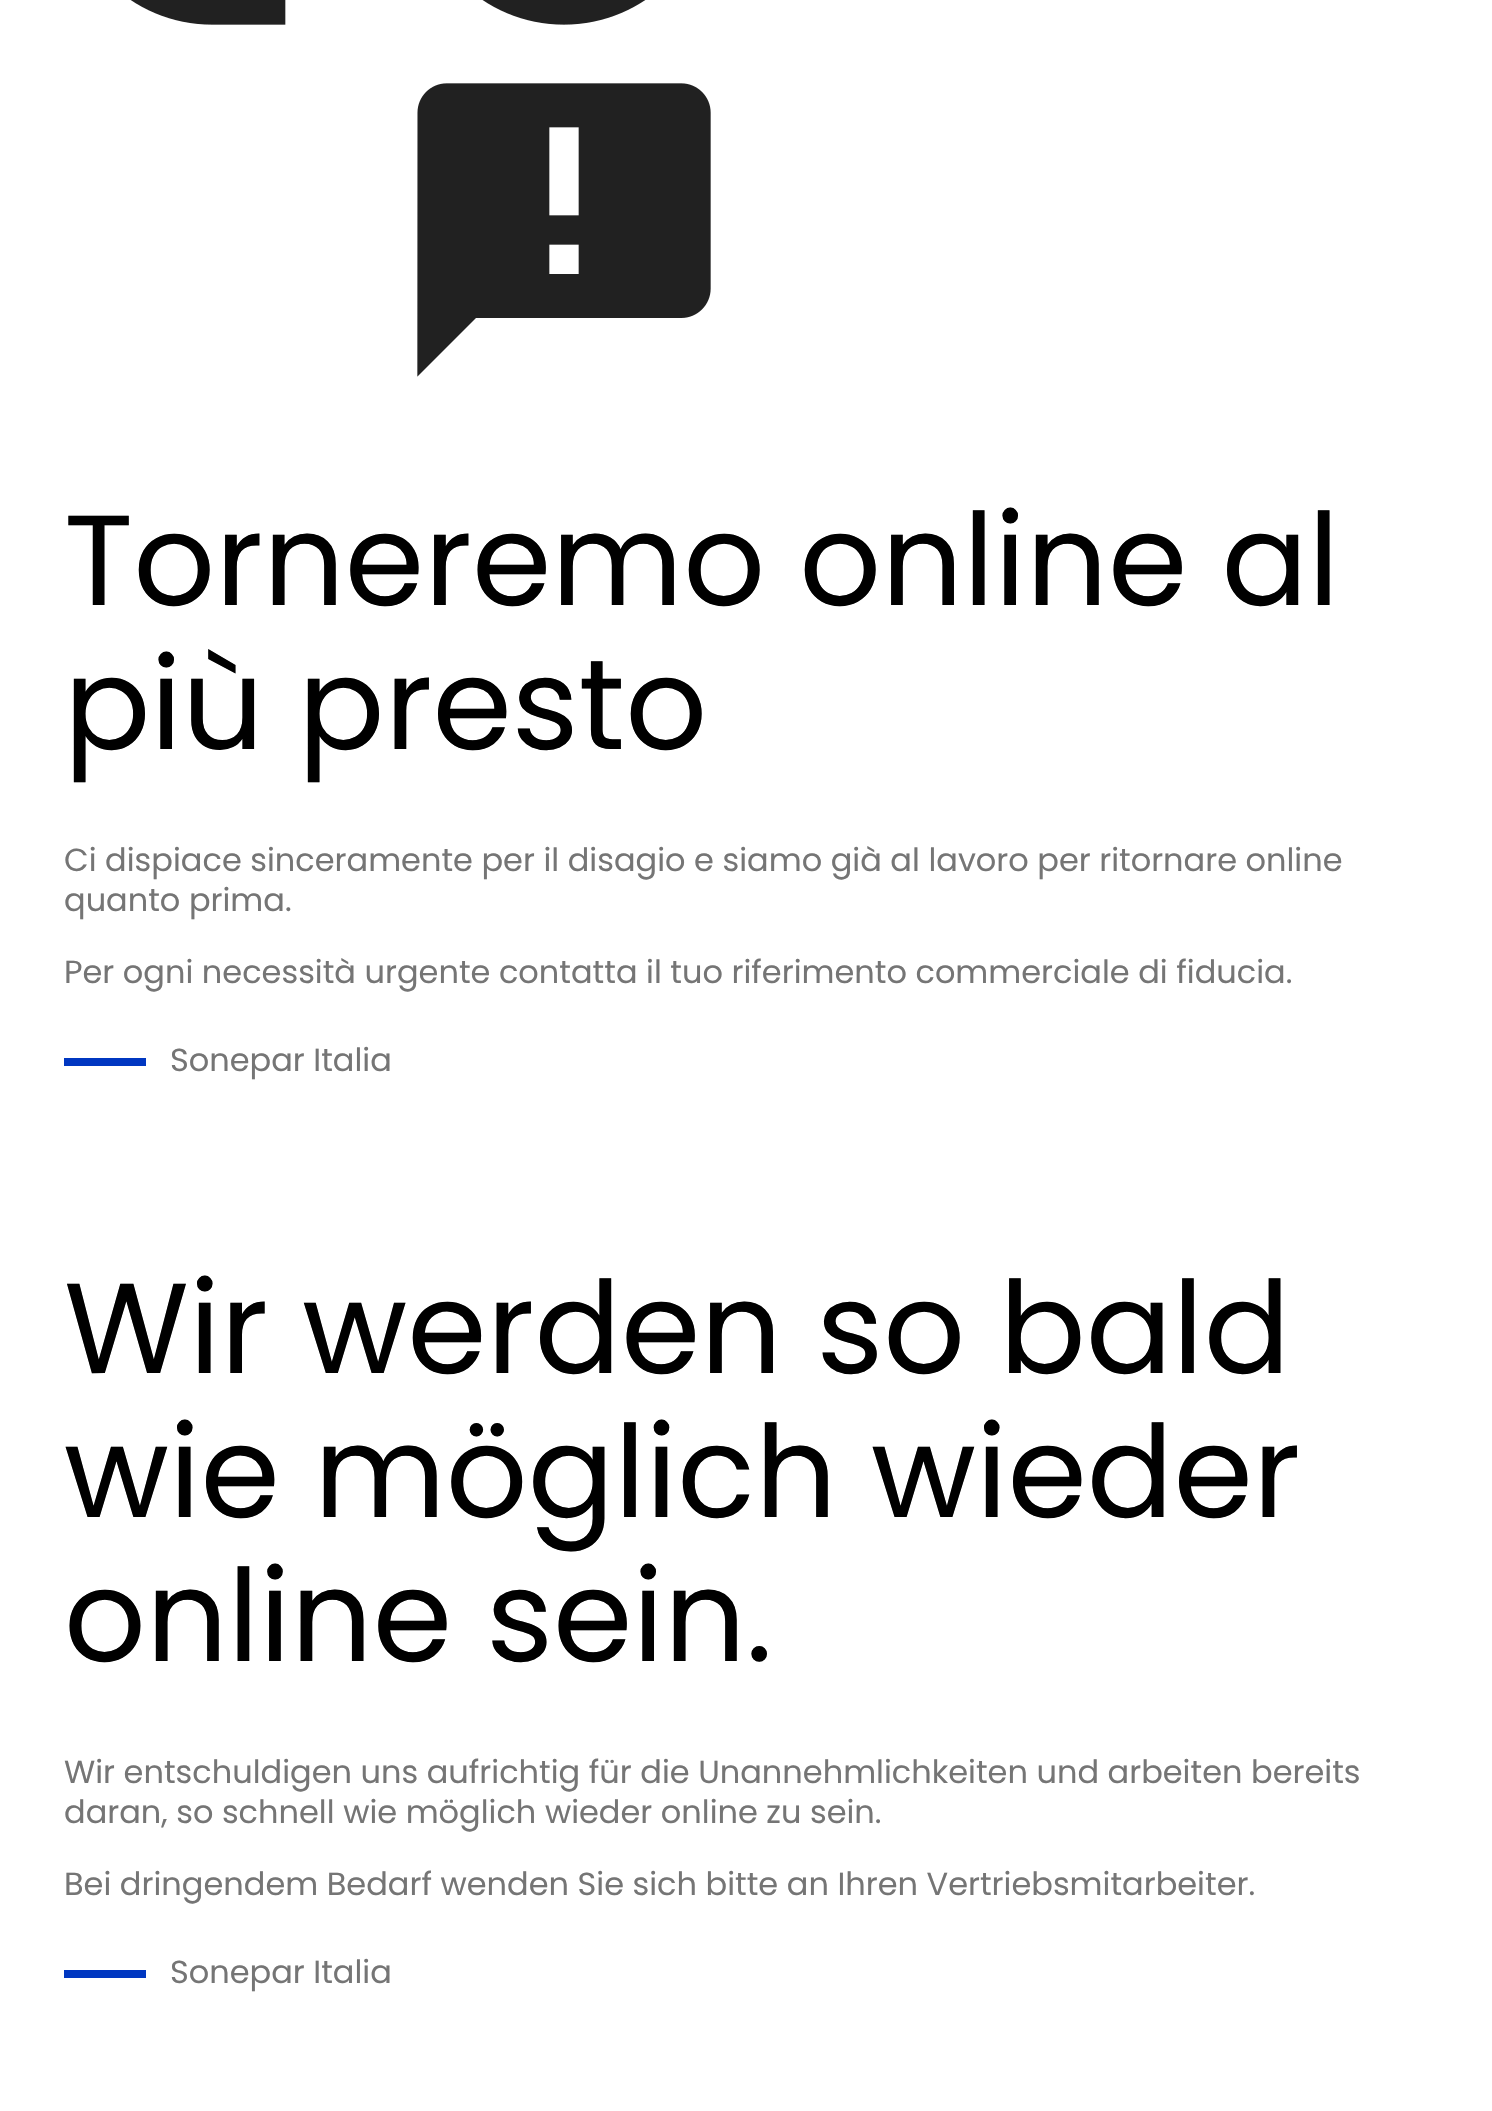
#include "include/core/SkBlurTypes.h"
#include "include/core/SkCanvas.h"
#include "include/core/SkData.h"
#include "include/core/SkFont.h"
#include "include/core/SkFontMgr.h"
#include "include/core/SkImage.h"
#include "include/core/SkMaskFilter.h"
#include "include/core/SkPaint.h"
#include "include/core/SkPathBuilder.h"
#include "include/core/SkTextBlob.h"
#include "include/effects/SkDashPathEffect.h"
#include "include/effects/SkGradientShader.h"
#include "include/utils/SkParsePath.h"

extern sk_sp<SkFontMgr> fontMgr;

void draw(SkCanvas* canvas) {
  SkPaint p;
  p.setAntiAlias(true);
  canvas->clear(SK_ColorWHITE);
  canvas->drawImageRect(SkImages::DeferredFromEncodedData(SkData::MakeFromFileName("images/1.png")), SkRect::MakeLTRB(130, 0, 711, 377), SkSamplingOptions());
  p.setColor(SkColorSetRGB(0, 55, 193));
  canvas->drawRect(SkRect::MakeLTRB(64, 1058, 146, 1066), p);
  canvas->drawRect(SkRect::MakeLTRB(64, 1970, 146, 1978), p);
  SkFont font1(fontMgr->matchFamilyStyle("Poppins", SkFontStyle::Normal()), 128);
  font1.setSubpixel(true);
  p.setColor(SK_ColorBLACK);
  canvas->drawString("Torneremo online al", 64, 605, font1, p);
  canvas->drawString("più presto", 64, 749, font1, p);
  SkFont font2(fontMgr->matchFamilyStyle("Poppins", SkFontStyle::Normal()), 32);
  font2.setSubpixel(true);
  p.setColor(SkColorSetRGB(117, 117, 117));
  canvas->drawString("Ci dispiace sinceramente per il disagio e siamo già al lavoro per ritornare online", 64, 871, font2, p);
  canvas->drawString("quanto prima.", 64, 911, font2, p);
  canvas->drawString("Per ogni necessità urgente contatta il tuo riferimento commerciale di fiducia.", 64, 983, font2, p);
  canvas->drawString("Sonepar Italia", 170, 1071, font2, p);
  p.setColor(SK_ColorBLACK);
  canvas->drawString("Wir werden so bald", 64, 1373, font1, p);
  canvas->drawString("wie möglich wieder", 64, 1517, font1, p);
  canvas->drawString("online sein.", 64, 1661, font1, p);
  p.setColor(SkColorSetRGB(117, 117, 117));
  canvas->drawString("Wir entschuldigen uns aufrichtig für die Unannehmlichkeiten und arbeiten bereits", 64, 1783, font2, p);
  canvas->drawString("daran, so schnell wie möglich wieder online zu sein.", 64, 1823, font2, p);
  canvas->drawString("Bei dringendem Bedarf wenden Sie sich bitte an Ihren Vertriebsmitarbeiter.", 64, 1895, font2, p);
  canvas->drawString("Sonepar Italia", 170, 1983, font2, p);
}
